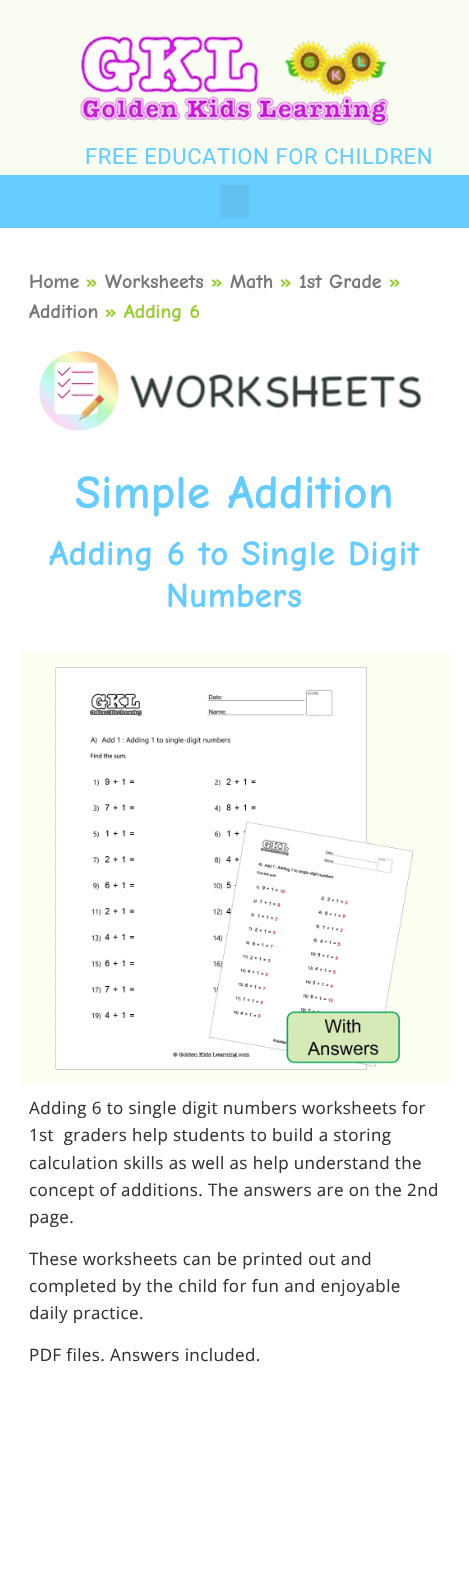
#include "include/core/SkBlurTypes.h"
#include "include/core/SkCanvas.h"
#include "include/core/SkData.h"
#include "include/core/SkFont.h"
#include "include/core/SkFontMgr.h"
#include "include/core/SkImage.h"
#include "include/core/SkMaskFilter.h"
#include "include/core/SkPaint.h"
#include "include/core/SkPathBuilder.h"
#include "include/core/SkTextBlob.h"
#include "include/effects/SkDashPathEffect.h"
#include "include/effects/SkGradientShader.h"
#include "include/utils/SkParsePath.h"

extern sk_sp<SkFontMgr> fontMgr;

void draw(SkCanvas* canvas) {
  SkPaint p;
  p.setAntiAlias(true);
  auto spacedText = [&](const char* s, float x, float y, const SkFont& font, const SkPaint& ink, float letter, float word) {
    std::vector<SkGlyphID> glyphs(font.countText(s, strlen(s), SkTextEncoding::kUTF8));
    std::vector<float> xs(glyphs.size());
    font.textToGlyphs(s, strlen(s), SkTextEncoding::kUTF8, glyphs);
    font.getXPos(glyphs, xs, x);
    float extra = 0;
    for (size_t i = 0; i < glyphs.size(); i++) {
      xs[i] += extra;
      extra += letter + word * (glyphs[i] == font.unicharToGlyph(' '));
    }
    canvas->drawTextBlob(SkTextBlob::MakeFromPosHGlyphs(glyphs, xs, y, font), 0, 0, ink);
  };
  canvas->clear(SK_ColorWHITE);
  p.setColor(SkColorSetRGB(248, 252, 241));
  canvas->drawRect(SkRect::MakeLTRB(0, 0, 469, 175), p);
  canvas->drawImageRect(SkImages::DeferredFromEncodedData(SkData::MakeFromFileName("images/1.png")), SkRect::MakeLTRB(80, 35, 389, 126), SkSamplingOptions());
  p.setColor(SkColorSetRGB(102, 204, 255));
  canvas->drawRect(SkRect::MakeLTRB(0, 175, 469, 228), p);
  p.setColor(SkColorSetRGB(97, 194, 242));
  canvas->drawRoundRect(SkRect::MakeLTRB(220, 185, 249, 218), 3, 3, p);
  canvas->drawImageRect(SkImages::DeferredFromEncodedData(SkData::MakeFromFileName("images/2.png")), SkRect::MakeLTRB(39, 351, 422, 431), SkSamplingOptions());
  p.setColor(SkColorSetRGB(251, 255, 242));
  canvas->drawRoundRect(SkRect::MakeLTRB(19, 653, 450, 1084), 1, 1, p);
  canvas->drawImageRect(SkImages::DeferredFromEncodedData(SkData::MakeFromFileName("images/3.png")), SkRect::MakeLTRB(55, 667, 414, 1070), SkSamplingOptions());
  SkFont font1(fontMgr->matchFamilyStyle("Roboto", SkFontStyle::Normal()), 22);
  font1.setSubpixel(true);
  p.setColor(SkColorSetRGB(102, 204, 255));
  spacedText("FREE EDUCATION FOR CHILDREN", 85, 164, font1, p, 0.6f, 0);
  SkFont font2(fontMgr->matchFamilyStyle("Comic Neue", SkFontStyle::Bold()), 20);
  font2.setSubpixel(true);
  p.setColor(SkColorSetRGB(119, 119, 119));
  canvas->drawString("Home", 29, 288, font2, p);
  p.setColor(SkColorSetRGB(153, 204, 51));
  canvas->drawString("»", 86, 288, font2, p);
  p.setColor(SkColorSetRGB(119, 119, 119));
  canvas->drawString("Worksheets", 105, 288, font2, p);
  p.setColor(SkColorSetRGB(153, 204, 51));
  canvas->drawString("»", 211, 288, font2, p);
  p.setColor(SkColorSetRGB(119, 119, 119));
  canvas->drawString("Math", 230, 288, font2, p);
  p.setColor(SkColorSetRGB(153, 204, 51));
  canvas->drawString("»", 280, 288, font2, p);
  p.setColor(SkColorSetRGB(119, 119, 119));
  canvas->drawString("1st Grade", 299, 288, font2, p);
  p.setColor(SkColorSetRGB(153, 204, 51));
  canvas->drawString("»", 389, 288, font2, p);
  p.setColor(SkColorSetRGB(119, 119, 119));
  canvas->drawString("Addition", 29, 318, font2, p);
  p.setColor(SkColorSetRGB(153, 204, 51));
  canvas->drawString("» Adding 6", 105, 318, font2, p);
  SkFont font3(fontMgr->matchFamilyStyle("Comic Neue", SkFontStyle::Bold()), 47);
  font3.setSubpixel(true);
  p.setColor(SkColorSetRGB(102, 204, 255));
  spacedText("Simple Addition", 75, 508, font3, p, 0.4f, 0);
  SkFont font4(fontMgr->matchFamilyStyle("Comic Neue", SkFontStyle::Bold()), 35);
  font4.setSubpixel(true);
  spacedText("Adding 6 to Single Digit", 49, 565, font4, p, 0.4f, 0);
  spacedText("Numbers", 166, 607, font4, p, 0.4f, 0);
  SkFont font5(fontMgr->matchFamilyStyle("Open Sans", SkFontStyle::Normal()), 17);
  font5.setSubpixel(true);
  p.setColor(SkColorSetRGB(51, 51, 51));
  spacedText("Adding 6 to single digit numbers worksheets for", 29, 1114, font5, p, 0.4f, 0);
  spacedText("1st  graders help students to build a storing", 29, 1141, font5, p, 0.4f, 0);
  spacedText("calculation skills as well as help understand the", 29, 1169, font5, p, 0.4f, 0);
  spacedText("concept of additions. The answers are on the 2nd", 29, 1196, font5, p, 0.4f, 0);
  spacedText("page.", 29, 1223, font5, p, 0.4f, 0);
  spacedText("These worksheets can be printed out and", 29, 1265, font5, p, 0.4f, 0);
  spacedText("completed by the child for fun and enjoyable", 29, 1292, font5, p, 0.4f, 0);
  spacedText("daily practice.", 29, 1319, font5, p, 0.4f, 0);
  spacedText("PDF files. Answers included.", 29, 1361, font5, p, 0.4f, 0);
}
